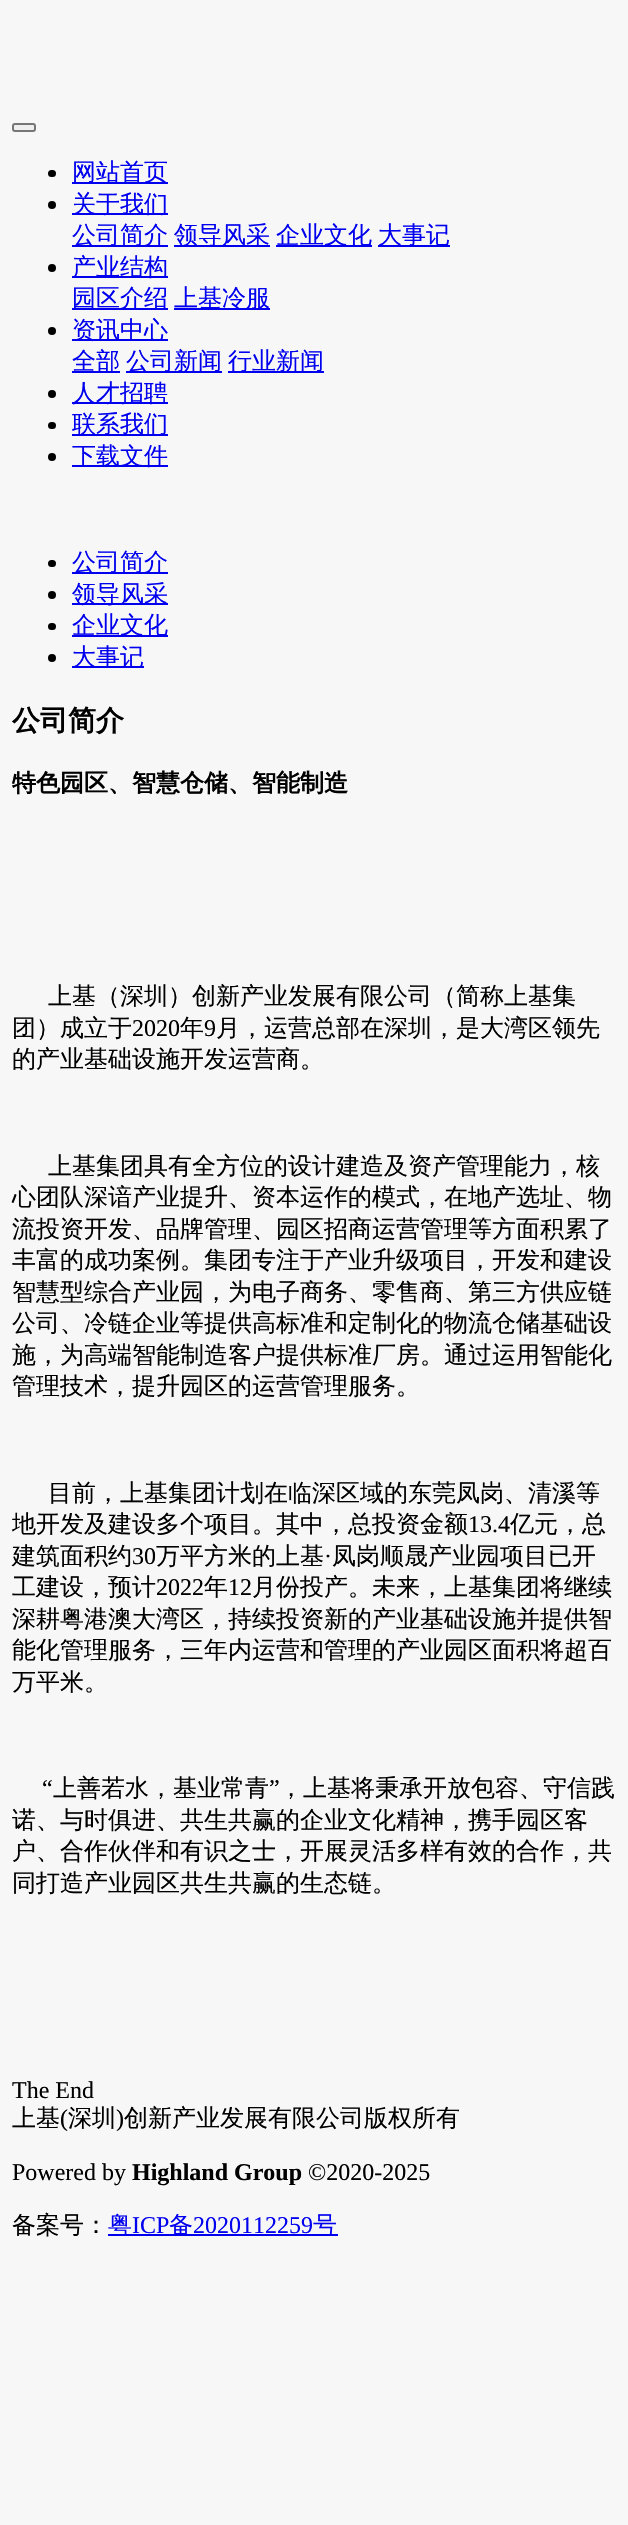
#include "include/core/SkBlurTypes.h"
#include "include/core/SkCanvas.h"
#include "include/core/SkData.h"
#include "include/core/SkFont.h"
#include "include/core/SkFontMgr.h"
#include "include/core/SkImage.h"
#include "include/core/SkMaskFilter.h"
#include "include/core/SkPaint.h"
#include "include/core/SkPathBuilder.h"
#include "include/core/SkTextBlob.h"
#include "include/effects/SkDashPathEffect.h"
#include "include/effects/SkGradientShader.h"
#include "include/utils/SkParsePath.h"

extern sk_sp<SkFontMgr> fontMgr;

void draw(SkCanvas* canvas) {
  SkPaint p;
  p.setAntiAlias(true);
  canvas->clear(SkColorSetRGB(247, 247, 247));
  p.setColor(SkColorSetRGB(239, 239, 239));
  canvas->drawRoundRect(SkRect::MakeLTRB(13, 124, 35, 131), 2, 2, p);
  p.setStyle(SkPaint::kStroke_Style);
  p.setStrokeWidth(2);
  p.setColor(SkColorSetRGB(118, 118, 118));
  canvas->drawRoundRect(SkRect::MakeLTRB(13, 124, 35, 131), 2, 2, p);
  p.setStyle(SkPaint::kFill_Style);
  p.setColor(SK_ColorBLACK);
  canvas->drawRoundRect(SkRect::MakeLTRB(48, 170, 56, 177), 3.5f, 3.5f, p);
  p.setColor(SkColorSetRGB(0, 0, 238));
  canvas->drawRect(SkRect::MakeLTRB(72, 182, 168, 184), p);
  p.setColor(SK_ColorBLACK);
  canvas->drawCircle(52, 205, 4, p);
  p.setColor(SkColorSetRGB(0, 0, 238));
  canvas->drawRect(SkRect::MakeLTRB(72, 213, 168, 215), p);
  canvas->drawRect(SkRect::MakeLTRB(72, 245, 168, 247), p);
  canvas->drawRect(SkRect::MakeLTRB(174, 245, 270, 247), p);
  canvas->drawRect(SkRect::MakeLTRB(276, 245, 372, 247), p);
  canvas->drawRect(SkRect::MakeLTRB(378, 245, 450, 247), p);
  p.setColor(SK_ColorBLACK);
  canvas->drawCircle(52, 268, 4, p);
  p.setColor(SkColorSetRGB(0, 0, 238));
  canvas->drawRect(SkRect::MakeLTRB(72, 276, 168, 278), p);
  canvas->drawRect(SkRect::MakeLTRB(72, 308, 168, 310), p);
  canvas->drawRect(SkRect::MakeLTRB(174, 308, 270, 310), p);
  p.setColor(SK_ColorBLACK);
  canvas->drawCircle(52, 331, 4, p);
  p.setColor(SkColorSetRGB(0, 0, 238));
  canvas->drawRect(SkRect::MakeLTRB(72, 339, 168, 341), p);
  canvas->drawRect(SkRect::MakeLTRB(72, 371, 120, 373), p);
  canvas->drawRect(SkRect::MakeLTRB(126, 371, 222, 373), p);
  canvas->drawRect(SkRect::MakeLTRB(228, 371, 324, 373), p);
  p.setColor(SK_ColorBLACK);
  canvas->drawCircle(52, 394, 4, p);
  p.setColor(SkColorSetRGB(0, 0, 238));
  canvas->drawRect(SkRect::MakeLTRB(72, 402, 168, 404), p);
  p.setColor(SK_ColorBLACK);
  canvas->drawRoundRect(SkRect::MakeLTRB(48, 422, 56, 429), 3.5f, 3.5f, p);
  p.setColor(SkColorSetRGB(0, 0, 238));
  canvas->drawRect(SkRect::MakeLTRB(72, 434, 168, 436), p);
  p.setColor(SK_ColorBLACK);
  canvas->drawCircle(52, 457, 4, p);
  p.setColor(SkColorSetRGB(0, 0, 238));
  canvas->drawRect(SkRect::MakeLTRB(72, 465, 168, 467), p);
  p.setColor(SK_ColorBLACK);
  canvas->drawRoundRect(SkRect::MakeLTRB(48, 560, 56, 567), 3.5f, 3.5f, p);
  p.setColor(SkColorSetRGB(0, 0, 238));
  canvas->drawRect(SkRect::MakeLTRB(72, 572, 168, 574), p);
  p.setColor(SK_ColorBLACK);
  canvas->drawCircle(52, 595, 4, p);
  p.setColor(SkColorSetRGB(0, 0, 238));
  canvas->drawRect(SkRect::MakeLTRB(72, 603, 168, 605), p);
  p.setColor(SK_ColorBLACK);
  canvas->drawRoundRect(SkRect::MakeLTRB(48, 623, 56, 630), 3.5f, 3.5f, p);
  p.setColor(SkColorSetRGB(0, 0, 238));
  canvas->drawRect(SkRect::MakeLTRB(72, 635, 168, 637), p);
  p.setColor(SK_ColorBLACK);
  canvas->drawCircle(52, 658, 4, p);
  p.setColor(SkColorSetRGB(0, 0, 238));
  canvas->drawRect(SkRect::MakeLTRB(72, 666, 144, 668), p);
  canvas->drawRect(SkRect::MakeLTRB(108, 2234, 338, 2236), p);
  SkFont font1(fontMgr->matchFamilyStyle("WenQuanYi Zen Hei", SkFontStyle(500, SkFontStyle::kNormal_Width, SkFontStyle::kUpright_Slant)), 24);
  font1.setSubpixel(true);
  canvas->drawString("网站首页", 72, 180, font1, p);
  canvas->drawString("关于我们", 72, 212, font1, p);
  canvas->drawString("公司简介", 72, 243, font1, p);
  canvas->drawString("领导风采", 174, 243, font1, p);
  canvas->drawString("企业文化", 276, 243, font1, p);
  canvas->drawString("大事记", 378, 243, font1, p);
  canvas->drawString("产业结构", 72, 275, font1, p);
  canvas->drawString("园区介绍", 72, 306, font1, p);
  canvas->drawString("上基冷服", 174, 306, font1, p);
  canvas->drawString("资讯中心", 72, 338, font1, p);
  canvas->drawString("全部", 72, 369, font1, p);
  canvas->drawString("公司新闻", 126, 369, font1, p);
  canvas->drawString("行业新闻", 228, 369, font1, p);
  canvas->drawString("人才招聘", 72, 401, font1, p);
  canvas->drawString("联系我们", 72, 432, font1, p);
  canvas->drawString("下载文件", 72, 464, font1, p);
  canvas->drawString("公司简介", 72, 570, font1, p);
  canvas->drawString("领导风采", 72, 602, font1, p);
  canvas->drawString("企业文化", 72, 633, font1, p);
  canvas->drawString("大事记", 72, 665, font1, p);
  SkFont font2(fontMgr->matchFamilyStyle("WenQuanYi Zen Hei", SkFontStyle::Bold()), 28);
  font2.setSubpixel(true);
  p.setColor(SK_ColorBLACK);
  canvas->drawString("公司简介", 12, 730, font2, p);
  SkFont font3(fontMgr->matchFamilyStyle("WenQuanYi Zen Hei", SkFontStyle::Bold()), 24);
  font3.setSubpixel(true);
  canvas->drawString("特色园区、智慧仓储、智能制造", 12, 791, font3, p);
  canvas->drawString("上基（深圳）创新产业发展有限公司（简称上基集", 48, 1004, font1, p);
  canvas->drawString("团）成立于", 12, 1036, font1, p);
  SkFont font4(fontMgr->matchFamilyStyle("Liberation Serif", SkFontStyle::Normal()), 24);
  font4.setSubpixel(true);
  canvas->drawString("2020", 132, 1036, font4, p);
  canvas->drawString("年", 180, 1036, font1, p);
  canvas->drawString("9", 204, 1036, font4, p);
  canvas->drawString("月，运营总部在深圳，是大湾区领先", 216, 1036, font1, p);
  canvas->drawString("的产业基础设施开发运营商。", 12, 1067, font1, p);
  canvas->drawString("上基集团具有全方位的设计建造及资产管理能力，核", 48, 1174, font1, p);
  canvas->drawString("心团队深谙产业提升、资本运作的模式，在地产选址、物", 12, 1205, font1, p);
  canvas->drawString("流投资开发、品牌管理、园区招商运营管理等方面积累了", 12, 1237, font1, p);
  canvas->drawString("丰富的成功案例。集团专注于产业升级项目，开发和建设", 12, 1268, font1, p);
  canvas->drawString("智慧型综合产业园，为电子商务、零售商、第三方供应链", 12, 1300, font1, p);
  canvas->drawString("公司、冷链企业等提供高标准和定制化的物流仓储基础设", 12, 1331, font1, p);
  canvas->drawString("施，为高端智能制造客户提供标准厂房。通过运用智能化", 12, 1363, font1, p);
  canvas->drawString("管理技术，提升园区的运营管理服务。", 12, 1394, font1, p);
  canvas->drawString("目前，上基集团计划在临深区域的东莞凤岗、清溪等", 48, 1501, font1, p);
  canvas->drawString("地开发及建设多个项目。其中，总投资金额", 12, 1532, font1, p);
  canvas->drawString("13.4", 468, 1532, font4, p);
  canvas->drawString("亿元，总", 510, 1532, font1, p);
  canvas->drawString("建筑面积约", 12, 1564, font1, p);
  canvas->drawString("30", 132, 1564, font4, p);
  canvas->drawString("万平方米的上基", 156, 1564, font1, p);
  canvas->drawString("·", 324, 1564, font4, p);
  canvas->drawString("凤岗顺晟产业园项目已开", 332, 1564, font1, p);
  canvas->drawString("工建设，预计", 12, 1595, font1, p);
  canvas->drawString("2022", 156, 1595, font4, p);
  canvas->drawString("年", 204, 1595, font1, p);
  canvas->drawString("12", 228, 1595, font4, p);
  canvas->drawString("月份投产。未来，上基集团将继续", 252, 1595, font1, p);
  canvas->drawString("深耕粤港澳大湾区，持续投资新的产业基础设施并提供智", 12, 1627, font1, p);
  canvas->drawString("能化管理服务，三年内运营和管理的产业园区面积将超百", 12, 1658, font1, p);
  canvas->drawString("万平米。", 12, 1690, font1, p);
  canvas->drawString("“", 42, 1796, font4, p);
  canvas->drawString("上善若水，基业常青", 53, 1796, font1, p);
  canvas->drawString("”", 269, 1796, font4, p);
  canvas->drawString("，上基将秉承开放包容、守信践", 279, 1796, font1, p);
  canvas->drawString("诺、与时俱进、共生共赢的企业文化精神，携手园区客", 12, 1828, font1, p);
  canvas->drawString("户、合作伙伴和有识之士，开展灵活多样有效的合作，共", 12, 1859, font1, p);
  canvas->drawString("同打造产业园区共生共赢的生态链。", 12, 1891, font1, p);
  canvas->drawString("The End", 12, 2098, font4, p);
  canvas->drawString("上基", 12, 2126, font1, p);
  canvas->drawString("(", 60, 2126, font4, p);
  canvas->drawString("深圳", 68, 2126, font1, p);
  canvas->drawString(")", 116, 2126, font4, p);
  canvas->drawString("创新产业发展有限公司版权所有", 124, 2126, font1, p);
  canvas->drawString("Powered by", 12, 2180, font4, p);
  SkFont font5(fontMgr->matchFamilyStyle("Liberation Serif", SkFontStyle::Bold()), 24);
  font5.setSubpixel(true);
  canvas->drawString("Highland Group", 132, 2180, font5, p);
  canvas->drawString("©2020-2025", 308, 2180, font4, p);
  canvas->drawString("备案号：", 12, 2233, font1, p);
  p.setColor(SkColorSetRGB(0, 0, 238));
  canvas->drawString("粤", 108, 2233, font1, p);
  canvas->drawString("ICP", 132, 2233, font4, p);
  canvas->drawString("备", 169, 2233, font1, p);
  canvas->drawString("2020112259", 193, 2233, font4, p);
  canvas->drawString("号", 313, 2233, font1, p);
}
